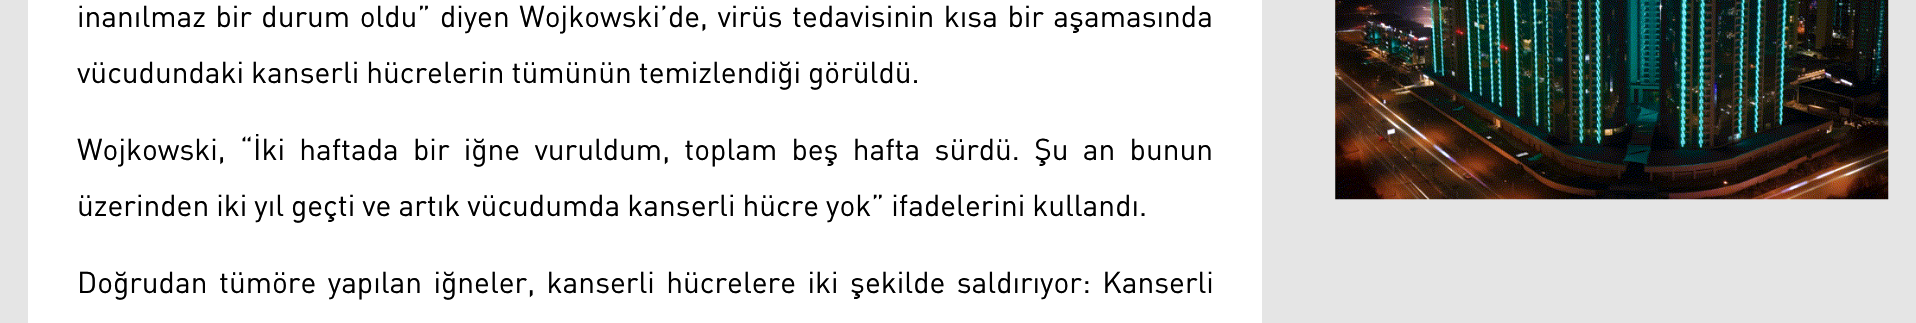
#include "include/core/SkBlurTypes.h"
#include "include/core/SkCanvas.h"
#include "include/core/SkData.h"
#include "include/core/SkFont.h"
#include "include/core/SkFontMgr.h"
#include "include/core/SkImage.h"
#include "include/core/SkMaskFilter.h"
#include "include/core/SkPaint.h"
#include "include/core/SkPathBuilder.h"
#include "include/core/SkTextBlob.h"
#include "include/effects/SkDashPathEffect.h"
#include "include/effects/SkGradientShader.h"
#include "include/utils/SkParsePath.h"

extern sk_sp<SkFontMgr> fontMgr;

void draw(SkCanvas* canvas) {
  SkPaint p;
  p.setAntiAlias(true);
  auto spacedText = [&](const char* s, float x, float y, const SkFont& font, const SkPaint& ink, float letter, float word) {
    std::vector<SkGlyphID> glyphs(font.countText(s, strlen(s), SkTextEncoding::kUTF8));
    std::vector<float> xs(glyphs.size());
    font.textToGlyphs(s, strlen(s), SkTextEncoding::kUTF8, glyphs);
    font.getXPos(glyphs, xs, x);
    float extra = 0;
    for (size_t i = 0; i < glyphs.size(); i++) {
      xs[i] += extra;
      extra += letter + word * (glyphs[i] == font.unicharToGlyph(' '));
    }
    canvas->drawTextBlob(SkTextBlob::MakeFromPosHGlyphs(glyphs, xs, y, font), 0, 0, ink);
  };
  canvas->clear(SkColorSetRGB(229, 229, 229));
  p.setColor(SK_ColorWHITE);
  canvas->drawRect(SkRect::MakeLTRB(28, 0, 1262, 323), p);
  canvas->drawImageRect(SkImages::DeferredFromEncodedData(SkData::MakeFromFileName("images/1.png")), SkRect::MakeLTRB(1335, 0, 1889, 200), SkSamplingOptions());
  SkFont font1(fontMgr->matchFamilyStyle("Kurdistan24", SkFontStyle::Normal()), 28);
  font1.setSubpixel(true);
  p.setColor(SK_ColorBLACK);
  spacedText("inanılmaz bir durum oldu” diyen Wojkowski’de, virüs tedavisinin kısa bir aşamasında", 77, 27, font1, p, 0, 2.5f);
  canvas->drawString("vücudundaki kanserli hücrelerin tümünün temizlendiği görüldü.", 77, 83, font1, p);
  spacedText("Wojkowski, “İki haftada bir iğne vuruldum, toplam beş hafta sürdü. Şu an bunun", 77, 160, font1, p, 0, 7.25f);
  canvas->drawString("üzerinden iki yıl geçti ve artık vücudumda kanserli hücre yok” ifadelerini kullandı.", 77, 216, font1, p);
  spacedText("Doğrudan tümöre yapılan iğneler, kanserli hücrelere iki şekilde saldırıyor: Kanserli", 77, 293, font1, p, 0, 4.5f);
}
